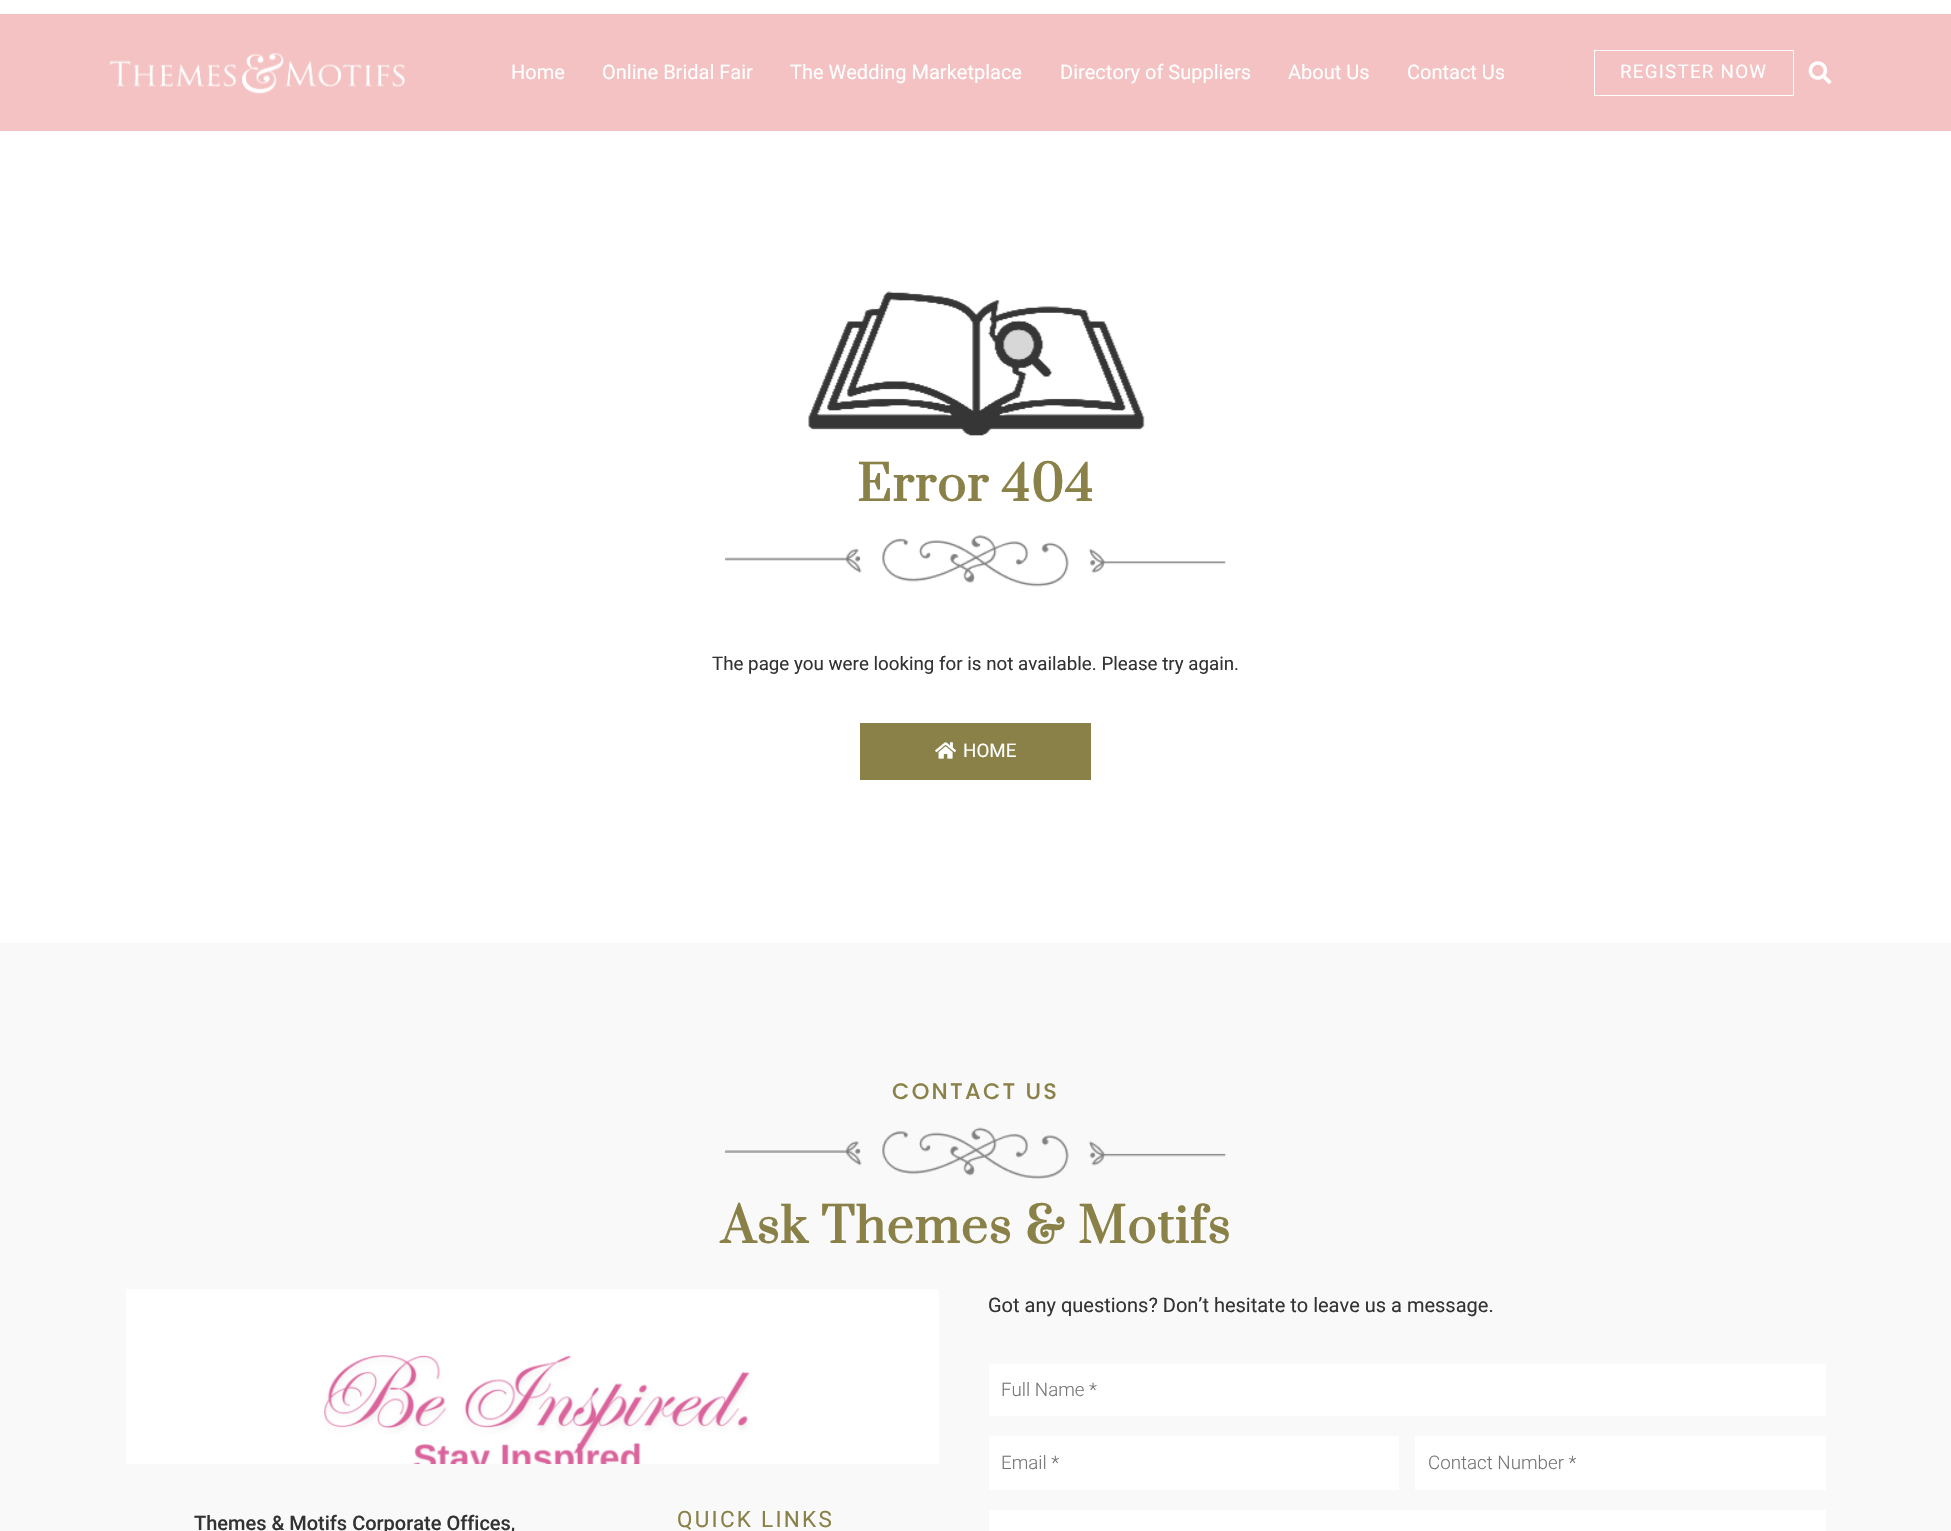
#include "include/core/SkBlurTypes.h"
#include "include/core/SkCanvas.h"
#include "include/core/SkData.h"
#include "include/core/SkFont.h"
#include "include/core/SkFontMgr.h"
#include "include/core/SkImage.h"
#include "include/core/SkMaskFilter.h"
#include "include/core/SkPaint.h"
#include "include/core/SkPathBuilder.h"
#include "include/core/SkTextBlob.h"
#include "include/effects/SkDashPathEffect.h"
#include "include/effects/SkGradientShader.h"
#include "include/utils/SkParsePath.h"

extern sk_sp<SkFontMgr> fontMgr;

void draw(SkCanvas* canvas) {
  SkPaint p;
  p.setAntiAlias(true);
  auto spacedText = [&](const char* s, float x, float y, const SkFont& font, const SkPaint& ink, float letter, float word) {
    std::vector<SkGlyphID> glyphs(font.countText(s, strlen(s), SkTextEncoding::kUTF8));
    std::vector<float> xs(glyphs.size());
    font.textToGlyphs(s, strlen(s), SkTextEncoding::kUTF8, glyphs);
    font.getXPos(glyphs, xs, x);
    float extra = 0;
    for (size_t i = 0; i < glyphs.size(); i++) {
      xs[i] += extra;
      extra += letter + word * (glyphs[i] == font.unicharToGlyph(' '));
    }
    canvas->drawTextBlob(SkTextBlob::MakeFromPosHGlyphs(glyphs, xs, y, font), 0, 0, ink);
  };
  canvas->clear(SK_ColorWHITE);
  p.setColor(SkColorSetRGB(244, 194, 194));
  canvas->drawRect(SkRect::MakeLTRB(0, 14, 1951, 131), p);
  canvas->drawImageRect(SkImages::DeferredFromEncodedData(SkData::MakeFromFileName("images/1.png")), SkRect::MakeLTRB(109, 52, 405, 94), SkSamplingOptions());
  p.setStyle(SkPaint::kStroke_Style);
  p.setStrokeWidth(1);
  p.setColor(SK_ColorWHITE);
  canvas->drawRect(SkRect::MakeLTRB(1594.5f, 50.5f, 1793.5f, 95.5f), p);
  canvas->drawImageRect(SkImages::DeferredFromEncodedData(SkData::MakeFromFileName("images/2.png")), SkRect::MakeLTRB(1808, 61, 1832, 84), SkSamplingOptions());
  canvas->drawImageRect(SkImages::DeferredFromEncodedData(SkData::MakeFromFileName("images/3.png")), SkRect::MakeLTRB(808, 291, 1145, 436), SkSamplingOptions());
  canvas->drawImageRect(SkImages::DeferredFromEncodedData(SkData::MakeFromFileName("images/4.png")), SkRect::MakeLTRB(725, 535, 1227, 587), SkSamplingOptions());
  p.setStyle(SkPaint::kFill_Style);
  p.setColor(SkColorSetRGB(137, 129, 71));
  canvas->drawRect(SkRect::MakeLTRB(860, 723, 1091, 780), p);
  canvas->drawImageRect(SkImages::DeferredFromEncodedData(SkData::MakeFromFileName("images/5.png")), SkRect::MakeLTRB(935, 742, 957, 759), SkSamplingOptions());
  p.setColor(SkColorSetRGB(249, 249, 249));
  canvas->drawRect(SkRect::MakeLTRB(0, 943, 1951, 1531), p);
  canvas->drawImageRect(SkImages::DeferredFromEncodedData(SkData::MakeFromFileName("images/6.png")), SkRect::MakeLTRB(725, 1127, 1227, 1179), SkSamplingOptions());
  p.setColor(SK_ColorWHITE);
  canvas->drawRect(SkRect::MakeLTRB(989, 1364, 1826, 1416), p);
  canvas->drawRect(SkRect::MakeLTRB(989, 1436, 1399, 1490), p);
  canvas->drawRect(SkRect::MakeLTRB(1415, 1436, 1826, 1490), p);
  canvas->drawRect(SkRect::MakeLTRB(989, 1510, 1826, 1531), p);
  canvas->drawImageRect(SkImages::DeferredFromEncodedData(SkData::MakeFromFileName("images/7.png")), SkRect::MakeLTRB(126, 1289, 939, 1464), SkSamplingOptions());
  SkFont font1(fontMgr->matchFamilyStyle("Roboto", SkFontStyle::Normal()), 20);
  font1.setSubpixel(true);
  canvas->drawString("Home", 511, 79, font1, p);
  canvas->drawString("Online Bridal Fair", 602, 79, font1, p);
  canvas->drawString("The Wedding Marketplace", 790, 79, font1, p);
  canvas->drawString("Directory of Suppliers", 1060, 79, font1, p);
  canvas->drawString("About Us", 1288, 79, font1, p);
  canvas->drawString("Contact Us", 1407, 79, font1, p);
  SkFont font2(fontMgr->matchFamilyStyle("Roboto", SkFontStyle::Normal()), 18.75f);
  font2.setSubpixel(true);
  spacedText("REGISTER NOW", 1620, 78, font2, p, 1.25f, 0);
  SkFont font3(fontMgr->matchFamilyStyle("Prata", SkFontStyle::Bold()), 47.5f);
  font3.setSubpixel(true);
  p.setColor(SkColorSetRGB(137, 129, 71));
  spacedText("Error 404", 857, 501, font3, p, 1.25f, 0);
  p.setColor(SkColorSetRGB(51, 51, 51));
  canvas->drawString("The page you were looking for is not available. Please try again.", 712, 670, font2, p);
  p.setColor(SK_ColorWHITE);
  canvas->drawString("HOME", 963, 757, font2, p);
  SkFont font4(fontMgr->matchFamilyStyle("Poppins", SkFontStyle(500, SkFontStyle::kNormal_Width, SkFontStyle::kUpright_Slant)), 22.5f);
  font4.setSubpixel(true);
  p.setColor(SkColorSetRGB(137, 129, 71));
  spacedText("CONTACT US", 892, 1099, font4, p, 2.25f, 0);
  spacedText("Ask Themes & Motifs", 721, 1243, font3, p, 1.25f, 0);
  p.setColor(SkColorSetRGB(51, 51, 51));
  canvas->drawString("Got any questions? Don’t hesitate to leave us a message.", 988, 1312, font1, p);
  SkFont font5(fontMgr->matchFamilyStyle("Roboto", SkFontStyle(300, SkFontStyle::kNormal_Width, SkFontStyle::kUpright_Slant)), 18.75f);
  font5.setSubpixel(true);
  p.setColor(SkColorSetRGB(117, 117, 117));
  canvas->drawString("Full Name *", 1001, 1396, font5, p);
  canvas->drawString("Email *", 1001, 1469, font5, p);
  canvas->drawString("Contact Number *", 1428, 1469, font5, p);
  SkFont font6(fontMgr->matchFamilyStyle("Roboto", SkFontStyle(500, SkFontStyle::kNormal_Width, SkFontStyle::kUpright_Slant)), 20);
  font6.setSubpixel(true);
  p.setColor(SkColorSetRGB(51, 51, 51));
  canvas->drawString("Themes & Motifs Corporate Offices,", 194, 1530, font6, p);
  SkFont font7(fontMgr->matchFamilyStyle("Roboto", SkFontStyle::Normal()), 22.5f);
  font7.setSubpixel(true);
  p.setColor(SkColorSetRGB(137, 129, 71));
  spacedText("QUICK LINKS", 677, 1527, font7, p, 2.25f, 0);
}
